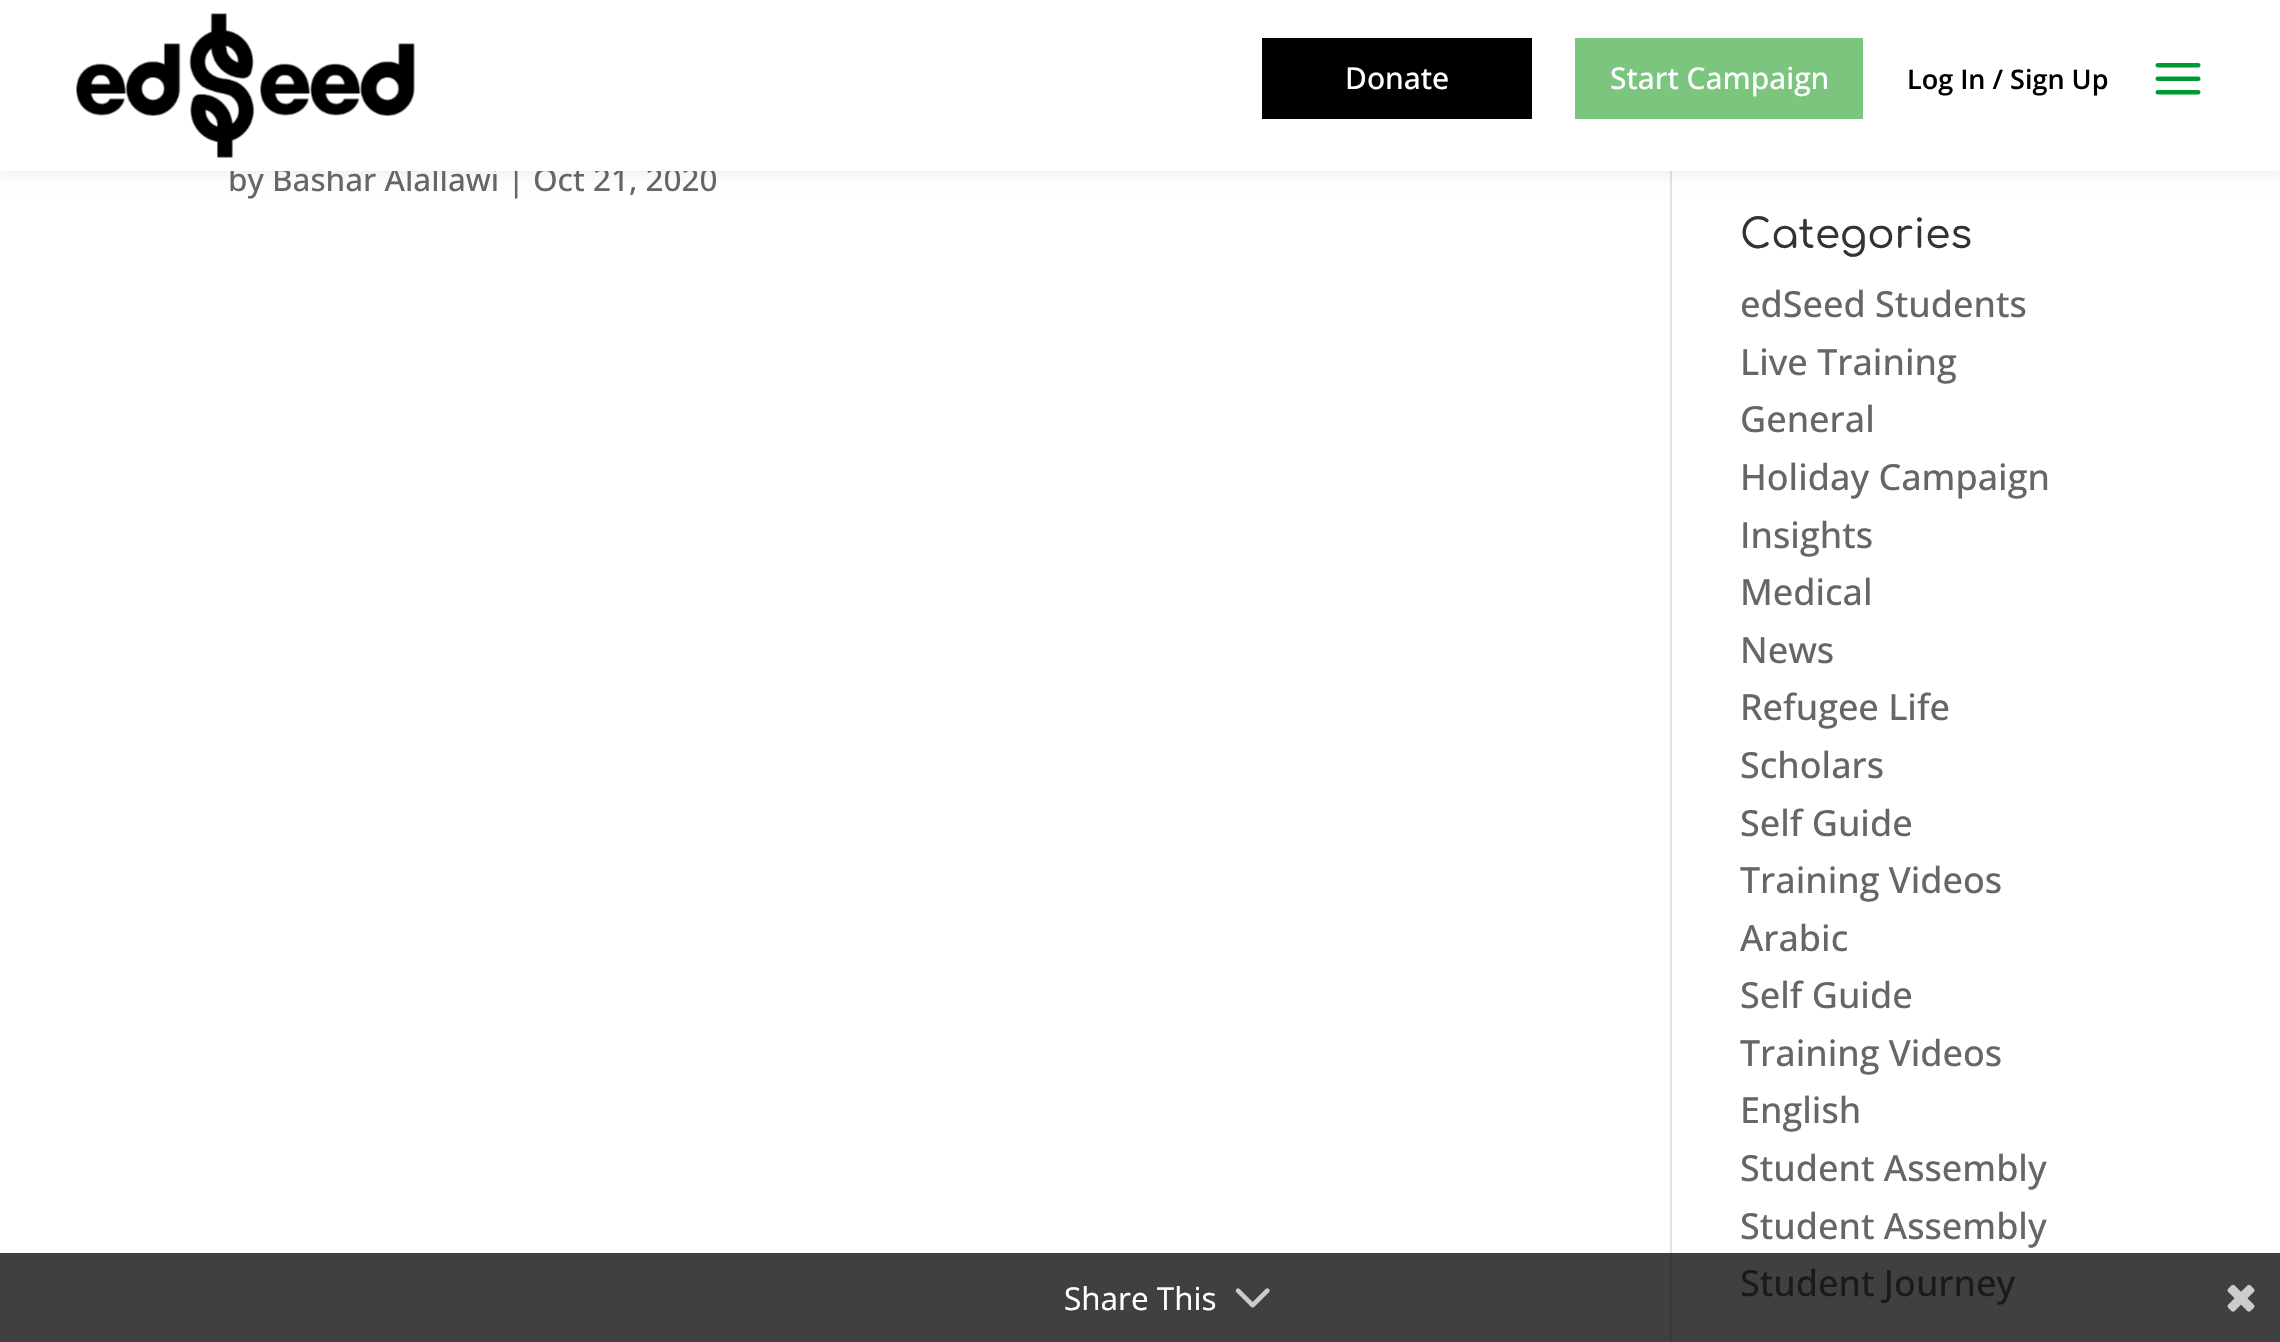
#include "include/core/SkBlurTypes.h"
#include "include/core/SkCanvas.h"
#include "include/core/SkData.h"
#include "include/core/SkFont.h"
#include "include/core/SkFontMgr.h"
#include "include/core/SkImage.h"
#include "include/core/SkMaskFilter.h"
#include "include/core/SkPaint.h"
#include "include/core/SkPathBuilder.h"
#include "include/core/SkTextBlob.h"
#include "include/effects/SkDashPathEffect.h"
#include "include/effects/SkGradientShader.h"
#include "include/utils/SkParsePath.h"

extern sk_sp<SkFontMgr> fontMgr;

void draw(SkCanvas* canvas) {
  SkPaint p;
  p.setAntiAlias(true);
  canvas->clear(SK_ColorWHITE);
  p.setColor(SkColorSetRGB(64, 64, 64));
  canvas->drawRect(SkRect::MakeLTRB(0, 1253, 2280, 1342), p);
  p.setColor(SkColorSetRGB(226, 226, 226));
  canvas->drawRect(SkRect::MakeLTRB(1670, 171, 1672, 1253), p);
  p.setColor(SkColorSetARGB(26, 0, 0, 0));
  p.setMaskFilter(SkMaskFilter::MakeBlur(kNormal_SkBlurStyle, 8));
  canvas->drawRect(SkRect::MakeLTRB(0, 0, 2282, 171), p);
  p.setMaskFilter(nullptr);
  p.setColor(SkColorSetRGB(57, 57, 57));
  canvas->drawRect(SkRect::MakeLTRB(1670, 1253, 1672, 1342), p);
  canvas->drawImageRect(SkImages::DeferredFromEncodedData(SkData::MakeFromFileName("images/3.png")), SkRect::MakeLTRB(1235, 1288, 1270, 1308), SkSamplingOptions());
  canvas->drawImageRect(SkImages::DeferredFromEncodedData(SkData::MakeFromFileName("images/4.png")), SkRect::MakeLTRB(2227, 1284, 2255, 1312), SkSamplingOptions());
  canvas->drawImageRect(SkImages::DeferredFromEncodedData(SkData::MakeFromFileName("images/5.png")), SkRect::MakeLTRB(1235, 1288, 1270, 1308), SkSamplingOptions());
  canvas->drawImageRect(SkImages::DeferredFromEncodedData(SkData::MakeFromFileName("images/6.png")), SkRect::MakeLTRB(2227, 1284, 2255, 1312), SkSamplingOptions());
  SkFont font1(fontMgr->matchFamilyStyle("Open Sans", SkFontStyle(500, SkFontStyle::kNormal_Width, SkFontStyle::kUpright_Slant)), 31.5f);
  font1.setSubpixel(true);
  p.setColor(SkColorSetRGB(102, 102, 102));
  canvas->drawString("by Bashar Alallawi | Oct 21, 2020", 228, 191, font1, p);
  p.setColor(SK_ColorWHITE);
  canvas->drawRect(SkRect::MakeLTRB(0, 0, 2280, 171), p);
  p.setColor(SkColorSetRGB(123, 197, 127));
  canvas->drawRect(SkRect::MakeLTRB(1575, 38, 1863, 119), p);
  SkFont font2(fontMgr->matchFamilyStyle("Open Sans", SkFontStyle(500, SkFontStyle::kNormal_Width, SkFontStyle::kUpright_Slant)), 30);
  font2.setSubpixel(true);
  p.setColor(SK_ColorWHITE);
  canvas->drawString("Start Campaign", 1610, 89, font2, p);
  p.setColor(SK_ColorBLACK);
  canvas->drawRect(SkRect::MakeLTRB(1262, 38, 1532, 119), p);
  p.setColor(SK_ColorWHITE);
  canvas->drawString("Donate", 1345, 89, font2, p);
  canvas->drawImageRect(SkImages::DeferredFromEncodedData(SkData::MakeFromFileName("images/2.png")), SkRect::MakeLTRB(2155, 63, 2201, 95), SkSamplingOptions());
  canvas->drawImageRect(SkImages::DeferredFromEncodedData(SkData::MakeFromFileName("images/1.png")), SkRect::MakeLTRB(76, 13, 415, 158), SkSamplingOptions());
  SkFont font3(fontMgr->matchFamilyStyle("Open Sans", SkFontStyle(600, SkFontStyle::kNormal_Width, SkFontStyle::kUpright_Slant)), 27);
  font3.setSubpixel(true);
  p.setColor(SK_ColorBLACK);
  canvas->drawString("Log In / Sign Up", 1907, 89, font3, p);
  SkFont font4(fontMgr->matchFamilyStyle("Comfortaa", SkFontStyle(500, SkFontStyle::kNormal_Width, SkFontStyle::kUpright_Slant)), 40.5f);
  font4.setSubpixel(true);
  p.setColor(SkColorSetRGB(51, 51, 51));
  canvas->drawString("Categories", 1740, 248, font4, p);
  SkFont font5(fontMgr->matchFamilyStyle("Open Sans", SkFontStyle(500, SkFontStyle::kNormal_Width, SkFontStyle::kUpright_Slant)), 36);
  font5.setSubpixel(true);
  p.setColor(SkColorSetRGB(102, 102, 102));
  canvas->drawString("edSeed Students", 1740, 317, font5, p);
  canvas->drawString("Live Training", 1740, 375, font5, p);
  canvas->drawString("General", 1740, 432, font5, p);
  canvas->drawString("Holiday Campaign", 1740, 490, font5, p);
  canvas->drawString("Insights", 1740, 548, font5, p);
  canvas->drawString("Medical", 1740, 605, font5, p);
  canvas->drawString("News", 1740, 663, font5, p);
  canvas->drawString("Refugee Life", 1740, 720, font5, p);
  canvas->drawString("Scholars", 1740, 778, font5, p);
  canvas->drawString("Self Guide", 1740, 836, font5, p);
  canvas->drawString("Training Videos", 1740, 893, font5, p);
  canvas->drawString("Arabic", 1740, 951, font5, p);
  canvas->drawString("Self Guide", 1740, 1008, font5, p);
  canvas->drawString("Training Videos", 1740, 1066, font5, p);
  canvas->drawString("English", 1740, 1123, font5, p);
  canvas->drawString("Student Assembly", 1740, 1181, font5, p);
  canvas->drawString("Student Assembly", 1740, 1239, font5, p);
  p.setColor(SkColorSetRGB(26, 26, 26));
  canvas->drawString("Student Journey", 1740, 1296, font5, p);
  SkFont font6(fontMgr->matchFamilyStyle("Open Sans", SkFontStyle::Normal()), 31.5f);
  font6.setSubpixel(true);
  p.setColor(SkColorSetRGB(128, 128, 128));
  canvas->drawString("Share This", 1064, 1310, font6, p);
  p.setColor(SK_ColorWHITE);
  canvas->drawString("Share This", 1064, 1310, font6, p);
}
